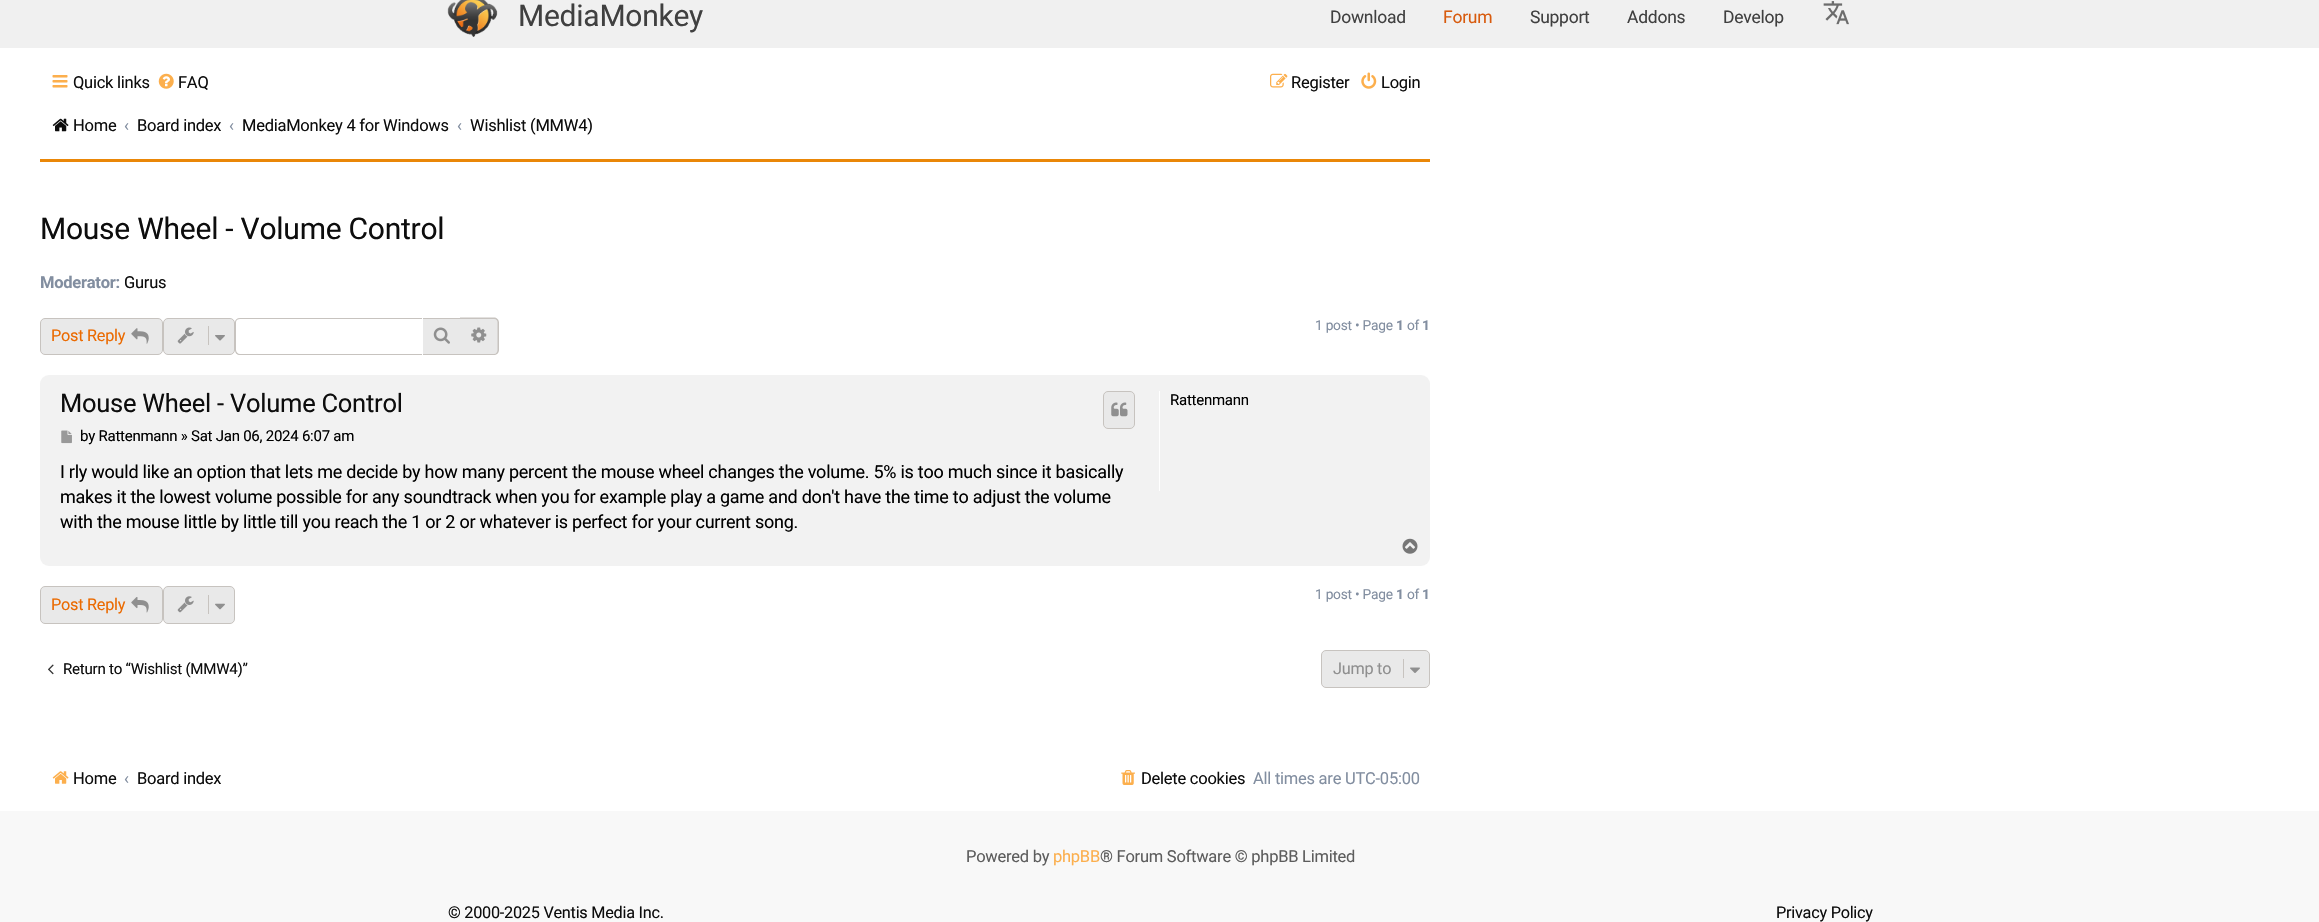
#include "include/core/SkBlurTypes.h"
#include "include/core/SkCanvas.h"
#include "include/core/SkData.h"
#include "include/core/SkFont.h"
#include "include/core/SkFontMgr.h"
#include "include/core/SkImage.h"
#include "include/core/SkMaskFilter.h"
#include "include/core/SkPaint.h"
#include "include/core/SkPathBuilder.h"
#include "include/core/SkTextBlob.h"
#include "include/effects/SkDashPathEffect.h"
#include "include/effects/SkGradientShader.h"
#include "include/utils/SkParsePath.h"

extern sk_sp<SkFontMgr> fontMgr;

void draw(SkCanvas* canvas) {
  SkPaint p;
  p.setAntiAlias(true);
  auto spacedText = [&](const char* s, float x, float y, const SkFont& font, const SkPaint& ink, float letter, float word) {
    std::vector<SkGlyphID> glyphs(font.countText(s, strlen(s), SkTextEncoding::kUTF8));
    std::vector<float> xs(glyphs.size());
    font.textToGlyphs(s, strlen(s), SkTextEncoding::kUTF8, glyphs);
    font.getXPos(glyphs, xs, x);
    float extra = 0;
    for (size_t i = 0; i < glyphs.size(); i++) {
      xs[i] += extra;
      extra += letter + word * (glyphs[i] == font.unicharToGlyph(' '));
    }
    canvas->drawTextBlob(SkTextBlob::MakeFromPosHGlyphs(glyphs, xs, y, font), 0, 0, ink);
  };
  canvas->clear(SK_ColorWHITE);
  p.setColor(SkColorSetRGB(240, 240, 240));
  canvas->drawRect(SkRect::MakeLTRB(0, 0, 2319, 48), p);
  canvas->drawImageRect(SkImages::DeferredFromEncodedData(SkData::MakeFromFileName("images/1.png")), SkRect::MakeLTRB(447, 0, 498, 37), SkSamplingOptions());
  canvas->drawImageRect(SkImages::DeferredFromEncodedData(SkData::MakeFromFileName("images/2.png")), SkRect::MakeLTRB(1823, 1, 1849, 25), SkSamplingOptions());
  p.setColor(SkColorSetRGB(234, 135, 8));
  canvas->drawRect(SkRect::MakeLTRB(40, 159, 1430, 162), p);
  canvas->drawImageRect(SkImages::DeferredFromEncodedData(SkData::MakeFromFileName("images/3.png")), SkRect::MakeLTRB(52, 75, 68, 88), SkSamplingOptions());
  canvas->drawImageRect(SkImages::DeferredFromEncodedData(SkData::MakeFromFileName("images/4.png")), SkRect::MakeLTRB(158, 73, 174, 89), SkSamplingOptions());
  canvas->drawImageRect(SkImages::DeferredFromEncodedData(SkData::MakeFromFileName("images/5.png")), SkRect::MakeLTRB(1270, 73, 1288, 88), SkSamplingOptions());
  canvas->drawImageRect(SkImages::DeferredFromEncodedData(SkData::MakeFromFileName("images/6.png")), SkRect::MakeLTRB(1361, 72, 1377, 89), SkSamplingOptions());
  canvas->drawImageRect(SkImages::DeferredFromEncodedData(SkData::MakeFromFileName("images/7.png")), SkRect::MakeLTRB(52, 118, 69, 132), SkSamplingOptions());
  p.setColor(SkColorSetRGB(233, 233, 233));
  canvas->drawRoundRect(SkRect::MakeLTRB(163.5f, 318.5f, 234.5f, 354.5f), 4.5f, 4.5f, p);
  p.setStyle(SkPaint::kStroke_Style);
  p.setStrokeWidth(1);
  p.setColor(SkColorSetRGB(199, 195, 191));
  canvas->drawRoundRect(SkRect::MakeLTRB(163.5f, 318.5f, 234.5f, 354.5f), 4.5f, 4.5f, p);
  canvas->drawImageRect(SkImages::DeferredFromEncodedData(SkData::MakeFromFileName("images/8.png")), SkRect::MakeLTRB(177, 327, 194, 344), SkSamplingOptions());
  p.setStyle(SkPaint::kFill_Style);
  canvas->drawRect(SkRect::MakeLTRB(208, 326, 209, 345), p);
  canvas->drawImageRect(SkImages::DeferredFromEncodedData(SkData::MakeFromFileName("images/9.png")), SkRect::MakeLTRB(215, 335, 225, 341), SkSamplingOptions());
  canvas->drawPath(SkPathBuilder(SkPathFillType::kEvenOdd).moveTo(240, 318).lineTo(422, 318).lineTo(422, 355).lineTo(240, 355).cubicTo(237, 355, 235, 353, 235, 350).lineTo(235, 322).cubicTo(235, 320, 237, 318, 240, 318).close().moveTo(240, 319).lineTo(422, 319).lineTo(422, 354).lineTo(240, 354).cubicTo(238, 354, 236, 352, 236, 350).lineTo(236, 322).cubicTo(236, 320, 238, 319, 240, 319).close().detach(), p);
  p.setColor(SkColorSetRGB(233, 233, 233));
  canvas->drawRect(SkRect::MakeLTRB(423, 319, 460, 354), p);
  p.setColor(SkColorSetRGB(199, 195, 191));
  canvas->drawRect(SkRect::MakeLTRB(423, 318, 460, 319), p);
  canvas->drawRect(SkRect::MakeLTRB(423, 354, 460, 355), p);
  canvas->drawImageRect(SkImages::DeferredFromEncodedData(SkData::MakeFromFileName("images/10.png")), SkRect::MakeLTRB(433, 327, 450, 344), SkSamplingOptions());
  p.setColor(SkColorSetRGB(233, 233, 233));
  canvas->drawPath(SkPathBuilder().moveTo(460, 319).lineTo(494, 319).cubicTo(496, 319, 498, 321, 498, 323).lineTo(498, 350).cubicTo(498, 352, 496, 354, 494, 354).lineTo(460, 354).close().detach(), p);
  p.setColor(SkColorSetRGB(199, 195, 191));
  canvas->drawPath(SkPathBuilder(SkPathFillType::kEvenOdd).moveTo(460, 317.5f).lineTo(494, 317.5f).cubicTo(496.5f, 317.5f, 499, 319.5f, 499, 322.5f).lineTo(499, 350).cubicTo(499, 353, 496.5f, 355, 494, 355).lineTo(460, 355).close().moveTo(460, 319).lineTo(494, 319).cubicTo(496, 319, 497.5f, 320.5f, 497.5f, 322.5f).lineTo(497.5f, 350).cubicTo(497.5f, 352, 496, 354, 494, 354).lineTo(460, 354).close().detach(), p);
  canvas->drawImageRect(SkImages::DeferredFromEncodedData(SkData::MakeFromFileName("images/11.png")), SkRect::MakeLTRB(471, 327, 487, 343), SkSamplingOptions());
  p.setColor(SkColorSetRGB(233, 233, 233));
  canvas->drawRoundRect(SkRect::MakeLTRB(40.5f, 318.5f, 162.5f, 354.5f), 4.5f, 4.5f, p);
  p.setStyle(SkPaint::kStroke_Style);
  p.setColor(SkColorSetRGB(199, 195, 191));
  canvas->drawRoundRect(SkRect::MakeLTRB(40.5f, 318.5f, 162.5f, 354.5f), 4.5f, 4.5f, p);
  canvas->drawImageRect(SkImages::DeferredFromEncodedData(SkData::MakeFromFileName("images/12.png")), SkRect::MakeLTRB(131, 328, 149, 344), SkSamplingOptions());
  p.setStyle(SkPaint::kFill_Style);
  p.setColor(SkColorSetRGB(242, 242, 242));
  canvas->drawRoundRect(SkRect::MakeLTRB(40, 375, 1430, 566), 9, 9, p);
  p.setColor(SkColorSetRGB(233, 233, 233));
  canvas->drawRoundRect(SkRect::MakeLTRB(1103.5f, 391.5f, 1134.5f, 428.5f), 4.5f, 4.5f, p);
  p.setStyle(SkPaint::kStroke_Style);
  p.setColor(SkColorSetRGB(199, 195, 191));
  canvas->drawRoundRect(SkRect::MakeLTRB(1103.5f, 391.5f, 1134.5f, 428.5f), 4.5f, 4.5f, p);
  canvas->drawImageRect(SkImages::DeferredFromEncodedData(SkData::MakeFromFileName("images/13.png")), SkRect::MakeLTRB(1111, 402, 1128, 417), SkSamplingOptions());
  canvas->drawImageRect(SkImages::DeferredFromEncodedData(SkData::MakeFromFileName("images/14.png")), SkRect::MakeLTRB(61, 430, 72, 444), SkSamplingOptions());
  p.setStyle(SkPaint::kFill_Style);
  p.setColor(SK_ColorWHITE);
  canvas->drawRect(SkRect::MakeLTRB(1159, 391, 1160, 491), p);
  canvas->drawImageRect(SkImages::DeferredFromEncodedData(SkData::MakeFromFileName("images/15.png")), SkRect::MakeLTRB(1402, 538, 1418, 554), SkSamplingOptions());
  p.setColor(SkColorSetRGB(233, 233, 233));
  canvas->drawRoundRect(SkRect::MakeLTRB(163.5f, 586.5f, 234.5f, 623.5f), 4.5f, 4.5f, p);
  p.setStyle(SkPaint::kStroke_Style);
  p.setColor(SkColorSetRGB(199, 195, 191));
  canvas->drawRoundRect(SkRect::MakeLTRB(163.5f, 586.5f, 234.5f, 623.5f), 4.5f, 4.5f, p);
  canvas->drawImageRect(SkImages::DeferredFromEncodedData(SkData::MakeFromFileName("images/16.png")), SkRect::MakeLTRB(177, 596, 194, 613), SkSamplingOptions());
  p.setStyle(SkPaint::kFill_Style);
  canvas->drawRect(SkRect::MakeLTRB(208, 595, 209, 614), p);
  canvas->drawImageRect(SkImages::DeferredFromEncodedData(SkData::MakeFromFileName("images/17.png")), SkRect::MakeLTRB(215, 603, 225, 610), SkSamplingOptions());
  p.setColor(SkColorSetRGB(233, 233, 233));
  canvas->drawRoundRect(SkRect::MakeLTRB(40.5f, 586.5f, 162.5f, 623.5f), 4.5f, 4.5f, p);
  p.setStyle(SkPaint::kStroke_Style);
  p.setColor(SkColorSetRGB(199, 195, 191));
  canvas->drawRoundRect(SkRect::MakeLTRB(40.5f, 586.5f, 162.5f, 623.5f), 4.5f, 4.5f, p);
  canvas->drawImageRect(SkImages::DeferredFromEncodedData(SkData::MakeFromFileName("images/18.png")), SkRect::MakeLTRB(131, 597, 149, 613), SkSamplingOptions());
  canvas->drawImageRect(SkImages::DeferredFromEncodedData(SkData::MakeFromFileName("images/19.png")), SkRect::MakeLTRB(48, 664, 54, 675), SkSamplingOptions());
  p.setStyle(SkPaint::kFill_Style);
  p.setColor(SkColorSetRGB(233, 233, 233));
  canvas->drawRoundRect(SkRect::MakeLTRB(1321.5f, 650.5f, 1429.5f, 687.5f), 4.5f, 4.5f, p);
  p.setStyle(SkPaint::kStroke_Style);
  p.setColor(SkColorSetRGB(199, 195, 191));
  canvas->drawRoundRect(SkRect::MakeLTRB(1321.5f, 650.5f, 1429.5f, 687.5f), 4.5f, 4.5f, p);
  p.setStyle(SkPaint::kFill_Style);
  canvas->drawRect(SkRect::MakeLTRB(1403, 659, 1404, 678), p);
  canvas->drawImageRect(SkImages::DeferredFromEncodedData(SkData::MakeFromFileName("images/20.png")), SkRect::MakeLTRB(1410, 667, 1420, 673), SkSamplingOptions());
  canvas->drawImageRect(SkImages::DeferredFromEncodedData(SkData::MakeFromFileName("images/21.png")), SkRect::MakeLTRB(52, 771, 69, 784), SkSamplingOptions());
  canvas->drawImageRect(SkImages::DeferredFromEncodedData(SkData::MakeFromFileName("images/22.png")), SkRect::MakeLTRB(1121, 770, 1135, 785), SkSamplingOptions());
  p.setColor(SkColorSetRGB(248, 248, 248));
  canvas->drawRect(SkRect::MakeLTRB(0, 811, 2319, 922), p);
  SkFont font1(fontMgr->matchFamilyStyle("Roboto", SkFontStyle::Normal()), 30);
  font1.setSubpixel(true);
  p.setColor(SkColorSetRGB(64, 64, 64));
  spacedText("MediaMonkey", 518, 26, font1, p, -0.25f, 0);
  SkFont font2(fontMgr->matchFamilyStyle("Roboto", SkFontStyle::Normal()), 17.5f);
  font2.setSubpixel(true);
  spacedText("Download", 1330, 23, font2, p, -0.25f, 0);
  p.setColor(SkColorSetRGB(216, 91, 14));
  spacedText("Forum", 1443, 23, font2, p, -0.25f, 0);
  p.setColor(SkColorSetRGB(64, 64, 64));
  spacedText("Support", 1530, 23, font2, p, -0.25f, 0);
  spacedText("Addons", 1627, 23, font2, p, -0.25f, 0);
  spacedText("Develop", 1723, 23, font2, p, -0.25f, 0);
  SkFont font3(fontMgr->matchFamilyStyle("Roboto", SkFontStyle::Normal()), 16.5f);
  font3.setSubpixel(true);
  p.setColor(SkColorSetRGB(13, 13, 13));
  spacedText("Quick links", 73, 88, font3, p, -0.25f, 0);
  spacedText("FAQ", 178, 88, font3, p, -0.25f, 0);
  spacedText("Register", 1291, 88, font3, p, -0.25f, 0);
  spacedText("Login", 1381, 88, font3, p, -0.25f, 0);
  spacedText("Home", 73, 131, font3, p, -0.25f, 0);
  p.setColor(SkColorSetRGB(130, 142, 160));
  spacedText("‹", 124, 131, font3, p, -0.25f, 0);
  p.setColor(SkColorSetRGB(13, 13, 13));
  spacedText("Board index", 137, 131, font3, p, -0.25f, 0);
  p.setColor(SkColorSetRGB(130, 142, 160));
  spacedText("‹", 229, 131, font3, p, -0.25f, 0);
  p.setColor(SkColorSetRGB(13, 13, 13));
  spacedText("MediaMonkey 4 for Windows", 242, 131, font3, p, -0.25f, 0);
  p.setColor(SkColorSetRGB(130, 142, 160));
  spacedText("‹", 457, 131, font3, p, -0.25f, 0);
  p.setColor(SkColorSetRGB(13, 13, 13));
  spacedText("Wishlist (MMW4)", 470, 131, font3, p, -0.25f, 0);
  spacedText("Mouse Wheel - Volume Control", 40, 239, font1, p, -0.25f, 0);
  SkFont font4(fontMgr->matchFamilyStyle("Roboto", SkFontStyle::Bold()), 16.5f);
  font4.setSubpixel(true);
  p.setColor(SkColorSetRGB(130, 142, 160));
  spacedText("Moderator:", 40, 288, font4, p, -0.25f, 0);
  p.setColor(SkColorSetRGB(13, 13, 13));
  spacedText("Gurus", 124, 288, font3, p, -0.25f, 0);
  SkFont font5(fontMgr->matchFamilyStyle("Roboto", SkFontStyle::Normal()), 13.75f);
  font5.setSubpixel(true);
  p.setColor(SkColorSetRGB(130, 142, 160));
  spacedText("1 post • Page", 1315, 330, font5, p, -0.25f, 0);
  SkFont font6(fontMgr->matchFamilyStyle("Roboto", SkFontStyle::Bold()), 13.75f);
  font6.setSubpixel(true);
  spacedText("1", 1396, 330, font6, p, -0.25f, 0);
  spacedText("of", 1407, 330, font5, p, -0.25f, 0);
  spacedText("1", 1422, 330, font6, p, -0.25f, 0);
  SkFont font7(fontMgr->matchFamilyStyle("Roboto", SkFontStyle::Normal()), 16.25f);
  font7.setSubpixel(true);
  p.setColor(SkColorSetRGB(235, 106, 0));
  spacedText("Post Reply", 51, 341, font7, p, -0.25f, 0);
  SkFont font8(fontMgr->matchFamilyStyle("Roboto", SkFontStyle::Normal()), 25.5f);
  font8.setSubpixel(true);
  p.setColor(SkColorSetRGB(13, 13, 13));
  spacedText("Mouse Wheel - Volume Control", 60, 412, font8, p, -0.25f, 0);
  SkFont font9(fontMgr->matchFamilyStyle("Roboto", SkFontStyle::Normal()), 15);
  font9.setSubpixel(true);
  p.setColor(SK_ColorBLACK);
  spacedText("by Rattenmann » Sat Jan 06, 2024 6:07 am", 80, 441, font9, p, -0.25f, 0);
  SkFont font10(fontMgr->matchFamilyStyle("Roboto", SkFontStyle::Normal()), 18);
  font10.setSubpixel(true);
  spacedText("I rly would like an option that lets me decide by how many percent the mouse wheel changes the volume. 5% is too much since it basically", 60, 478, font10, p, -0.25f, 0);
  spacedText("makes it the lowest volume possible for any soundtrack when you for example play a game and don't have the time to adjust the volume", 60, 503, font10, p, -0.25f, 0);
  spacedText("with the mouse little by little till you reach the 1 or 2 or whatever is perfect for your current song.", 60, 528, font10, p, -0.25f, 0);
  spacedText("Rattenmann", 1170, 405, font9, p, -0.25f, 0);
  p.setColor(SkColorSetRGB(130, 142, 160));
  spacedText("1 post • Page", 1315, 599, font5, p, -0.25f, 0);
  spacedText("1", 1396, 599, font6, p, -0.25f, 0);
  spacedText("of", 1407, 599, font5, p, -0.25f, 0);
  spacedText("1", 1422, 599, font6, p, -0.25f, 0);
  p.setColor(SkColorSetRGB(235, 106, 0));
  spacedText("Post Reply", 51, 610, font7, p, -0.25f, 0);
  SkFont font11(fontMgr->matchFamilyStyle("Roboto", SkFontStyle::Normal()), 15.1f);
  font11.setSubpixel(true);
  p.setColor(SkColorSetRGB(13, 13, 13));
  spacedText("Return to “Wishlist (MMW4)”", 63, 674, font11, p, -0.25f, 0);
  p.setColor(SkColorSetRGB(143, 143, 143));
  spacedText("Jump to", 1333, 674, font7, p, -0.25f, 0);
  p.setColor(SkColorSetRGB(13, 13, 13));
  spacedText("Home", 73, 784, font3, p, -0.25f, 0);
  p.setColor(SkColorSetRGB(130, 142, 160));
  spacedText("‹", 124, 784, font3, p, -0.25f, 0);
  p.setColor(SkColorSetRGB(13, 13, 13));
  spacedText("Board index", 137, 784, font3, p, -0.25f, 0);
  spacedText("Delete cookies", 1141, 784, font3, p, -0.25f, 0);
  p.setColor(SkColorSetRGB(130, 142, 160));
  spacedText("All times are UTC-05:00", 1253, 784, font3, p, -0.25f, 0);
  p.setColor(SkColorSetRGB(93, 93, 93));
  spacedText("Powered by", 966, 862, font3, p, -0.25f, 0);
  p.setColor(SkColorSetRGB(252, 175, 77));
  spacedText("phpBB", 1053, 862, font3, p, -0.25f, 0);
  p.setColor(SkColorSetRGB(93, 93, 93));
  spacedText("® Forum Software © phpBB Limited", 1100, 862, font3, p, -0.25f, 0);
  p.setColor(SkColorSetRGB(13, 13, 13));
  spacedText("© 2000-2025 Ventis Media Inc.", 448, 918, font7, p, -0.25f, 0);
  spacedText("Privacy Policy", 1776, 918, font7, p, -0.25f, 0);
}
